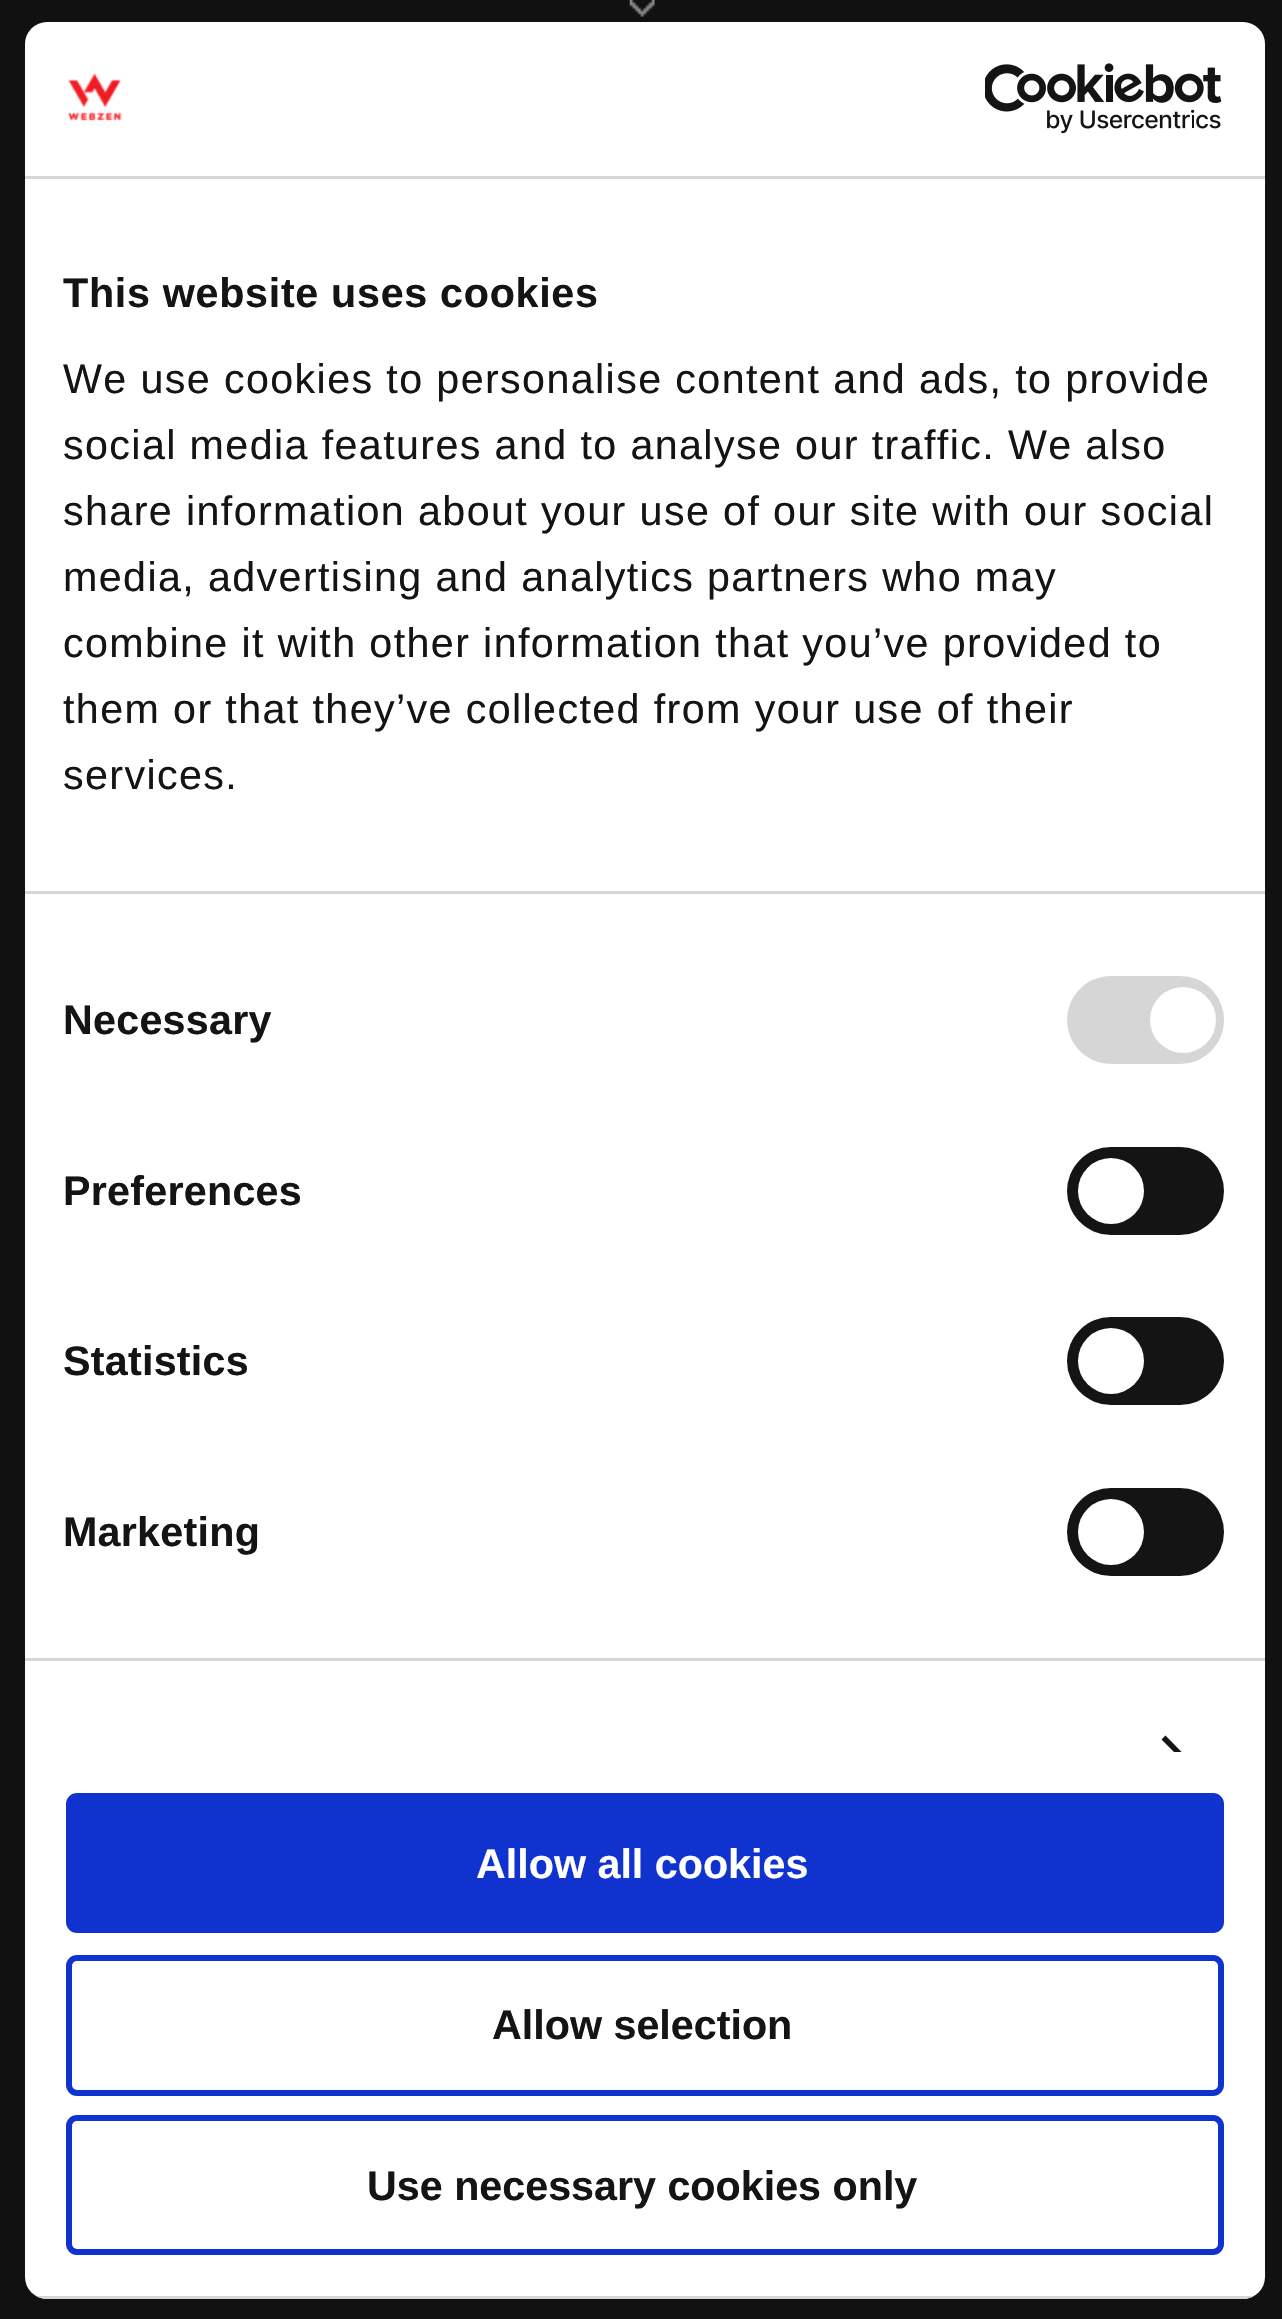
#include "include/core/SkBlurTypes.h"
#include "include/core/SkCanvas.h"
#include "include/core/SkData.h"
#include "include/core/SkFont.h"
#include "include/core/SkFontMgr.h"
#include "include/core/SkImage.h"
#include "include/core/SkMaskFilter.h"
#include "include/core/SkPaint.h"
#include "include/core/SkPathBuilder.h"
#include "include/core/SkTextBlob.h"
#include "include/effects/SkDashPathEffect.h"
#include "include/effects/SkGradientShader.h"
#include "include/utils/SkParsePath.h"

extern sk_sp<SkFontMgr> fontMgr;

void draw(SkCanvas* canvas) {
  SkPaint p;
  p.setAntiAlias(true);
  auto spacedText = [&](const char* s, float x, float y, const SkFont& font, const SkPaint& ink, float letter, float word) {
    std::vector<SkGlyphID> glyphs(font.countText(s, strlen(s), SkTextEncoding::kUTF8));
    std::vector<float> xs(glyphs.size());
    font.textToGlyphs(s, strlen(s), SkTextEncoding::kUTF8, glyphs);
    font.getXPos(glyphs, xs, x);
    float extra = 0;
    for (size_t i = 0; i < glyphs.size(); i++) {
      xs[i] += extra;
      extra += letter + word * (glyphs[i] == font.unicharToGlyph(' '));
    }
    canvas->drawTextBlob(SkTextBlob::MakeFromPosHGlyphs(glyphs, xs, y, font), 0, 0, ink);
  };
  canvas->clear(SkColorSetRGB(17, 17, 17));
  canvas->drawImageRect(SkImages::DeferredFromEncodedData(SkData::MakeFromFileName("images/1.png")), SkRect::MakeLTRB(629, 0, 655, 17), SkSamplingOptions());
  p.setColor(SK_ColorWHITE);
  canvas->drawRoundRect(SkRect::MakeLTRB(25, 22, 1265, 2299), 22, 22, p);
  p.setColor(SkColorSetRGB(214, 214, 214));
  canvas->drawRect(SkRect::MakeLTRB(25, 176, 1265, 179), p);
  canvas->drawImageRect(SkImages::DeferredFromEncodedData(SkData::MakeFromFileName("images/2.png")), SkRect::MakeLTRB(68, 73, 122, 122), SkSamplingOptions());
  canvas->drawImageRect(SkImages::DeferredFromEncodedData(SkData::MakeFromFileName("images/3.png")), SkRect::MakeLTRB(985, 63, 1222, 134), SkSamplingOptions());
  canvas->drawRect(SkRect::MakeLTRB(25, 891, 1265, 894), p);
  canvas->drawRect(SkRect::MakeLTRB(25, 1658, 1265, 1661), p);
  canvas->drawRoundRect(SkRect::MakeLTRB(1067, 976, 1224, 1064), 44, 44, p);
  p.setColor(SK_ColorWHITE);
  canvas->drawCircle(1183, 1020, 33, p);
  p.setColor(SkColorSetRGB(20, 20, 20));
  canvas->drawRoundRect(SkRect::MakeLTRB(1067, 1147, 1224, 1235), 44, 44, p);
  p.setColor(SK_ColorWHITE);
  canvas->drawCircle(1111, 1191, 33, p);
  p.setColor(SkColorSetRGB(20, 20, 20));
  canvas->drawRoundRect(SkRect::MakeLTRB(1067, 1317, 1224, 1405), 44, 44, p);
  p.setColor(SK_ColorWHITE);
  canvas->drawCircle(1111, 1361, 33, p);
  p.setColor(SkColorSetRGB(20, 20, 20));
  canvas->drawRoundRect(SkRect::MakeLTRB(1067, 1488, 1224, 1576), 44, 44, p);
  p.setColor(SK_ColorWHITE);
  canvas->drawCircle(1111, 1532, 33, p);
  canvas->save();
  canvas->clipRect(SkRect::MakeLTRB(25, 179, 1265, 1752));
  p.setColor(SkColorSetRGB(20, 20, 20));
  canvas->drawPath(SkPathBuilder().moveTo(1165.5f, 1735.5f).lineTo(1185.5f, 1756).lineTo(1182, 1760).lineTo(1161.5f, 1739.5f).close().detach(), p);
  canvas->restore();
  canvas->save();
  canvas->clipPath(SkPathBuilder().moveTo(47, 22).lineTo(1243, 22).cubicTo(1255, 22, 1265, 32, 1265, 44).lineTo(1265, 2277).cubicTo(1265, 2289, 1255, 2299, 1243, 2299).lineTo(47, 2299).cubicTo(35, 2299, 25, 2289, 25, 2277).lineTo(25, 44).cubicTo(25, 32, 35, 22, 47, 22).close().detach(), true);
  p.setColor(SkColorSetRGB(214, 214, 214));
  canvas->drawRect(SkRect::MakeLTRB(36, 2296, 1254, 2299), p);
  canvas->restore();
  p.setColor(SkColorSetRGB(16, 50, 207));
  canvas->drawRoundRect(SkRect::MakeLTRB(69, 1796, 1221, 1930), 8, 8, p);
  p.setStyle(SkPaint::kStroke_Style);
  p.setStrokeWidth(6);
  canvas->drawRoundRect(SkRect::MakeLTRB(69, 1796, 1221, 1930), 8, 8, p);
  canvas->drawRoundRect(SkRect::MakeLTRB(69, 1958, 1221, 2093), 8, 8, p);
  canvas->drawRoundRect(SkRect::MakeLTRB(69, 2118, 1221, 2252), 8, 8, p);
  SkFont font1(fontMgr->matchFamilyStyle("Liberation Sans", SkFontStyle::Bold()), 41.25f);
  font1.setSubpixel(true);
  p.setStyle(SkPaint::kFill_Style);
  p.setColor(SkColorSetRGB(20, 20, 20));
  spacedText("This website uses cookies", 63, 307, font1, p, 0.7f, 0);
  SkFont font2(fontMgr->matchFamilyStyle("Liberation Sans", SkFontStyle::Normal()), 41.25f);
  font2.setSubpixel(true);
  spacedText("We use cookies to personalise content and ads, to provide", 63, 393, font2, p, 1.38f, 0);
  spacedText("social media features and to analyse our traffic. We also", 63, 459, font2, p, 1.38f, 0);
  spacedText("share information about your use of our site with our social", 63, 525, font2, p, 1.38f, 0);
  spacedText("media, advertising and analytics partners who may", 63, 591, font2, p, 1.38f, 0);
  spacedText("combine it with other information that you’ve provided to", 63, 657, font2, p, 1.38f, 0);
  spacedText("them or that they’ve collected from your use of their", 63, 723, font2, p, 1.38f, 0);
  spacedText("services.", 63, 789, font2, p, 1.38f, 0);
  spacedText("Necessary", 63, 1034, font1, p, 0.25f, 0);
  spacedText("Preferences", 63, 1205, font1, p, 0.25f, 0);
  spacedText("Statistics", 63, 1375, font1, p, 0.25f, 0);
  spacedText("Marketing", 63, 1546, font1, p, 0.25f, 0);
  p.setColor(SK_ColorWHITE);
  canvas->drawString("Allow all cookies", 476, 1878, font1, p);
  p.setColor(SkColorSetRGB(20, 20, 20));
  canvas->drawString("Allow selection", 492, 2039, font1, p);
  canvas->drawString("Use necessary cookies only", 367, 2200, font1, p);
}
